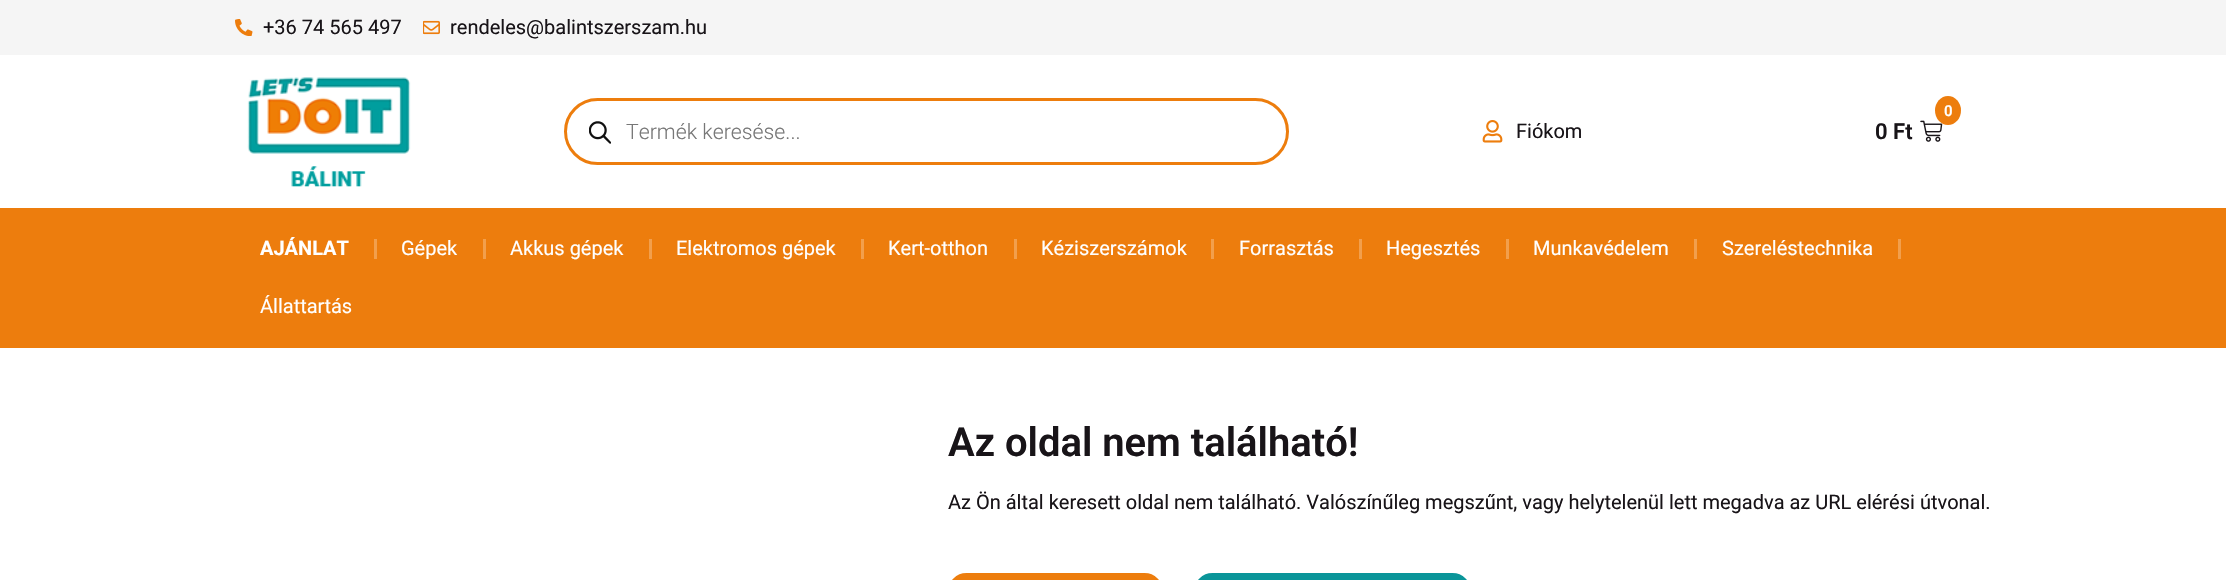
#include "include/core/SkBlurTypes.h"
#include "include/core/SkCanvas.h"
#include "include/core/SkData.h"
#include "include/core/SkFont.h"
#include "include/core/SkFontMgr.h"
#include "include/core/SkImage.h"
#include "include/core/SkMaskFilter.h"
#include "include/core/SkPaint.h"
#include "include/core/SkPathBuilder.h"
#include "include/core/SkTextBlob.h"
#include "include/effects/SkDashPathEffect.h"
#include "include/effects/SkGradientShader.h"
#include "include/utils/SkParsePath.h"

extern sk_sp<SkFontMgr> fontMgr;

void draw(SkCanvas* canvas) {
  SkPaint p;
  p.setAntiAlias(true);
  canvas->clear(SK_ColorWHITE);
  p.setColor(SkColorSetRGB(245, 245, 245));
  canvas->drawRect(SkRect::MakeLTRB(0, 0, 2226, 55), p);
  canvas->drawImageRect(SkImages::DeferredFromEncodedData(SkData::MakeFromFileName("images/1.png")), SkRect::MakeLTRB(235, 19, 253, 36), SkSamplingOptions());
  canvas->drawImageRect(SkImages::DeferredFromEncodedData(SkData::MakeFromFileName("images/2.png")), SkRect::MakeLTRB(423, 20, 440, 35), SkSamplingOptions());
  canvas->drawImageRect(SkImages::DeferredFromEncodedData(SkData::MakeFromFileName("images/3.png")), SkRect::MakeLTRB(247, 77, 411, 187), SkSamplingOptions());
  p.setStyle(SkPaint::kStroke_Style);
  p.setStrokeWidth(3);
  p.setColor(SkColorSetRGB(237, 125, 13));
  canvas->drawRoundRect(SkRect::MakeLTRB(565.5f, 99.5f, 1287.5f, 163.5f), 32, 32, p);
  canvas->drawImageRect(SkImages::DeferredFromEncodedData(SkData::MakeFromFileName("images/4.png")), SkRect::MakeLTRB(589, 121, 611, 144), SkSamplingOptions());
  canvas->drawImageRect(SkImages::DeferredFromEncodedData(SkData::MakeFromFileName("images/5.png")), SkRect::MakeLTRB(1482, 120, 1503, 143), SkSamplingOptions());
  canvas->drawImageRect(SkImages::DeferredFromEncodedData(SkData::MakeFromFileName("images/6.png")), SkRect::MakeLTRB(1920, 120, 1943, 142), SkSamplingOptions());
  p.setStyle(SkPaint::kFill_Style);
  canvas->drawOval(SkRect::MakeLTRB(1935, 96, 1961, 125), p);
  canvas->drawRect(SkRect::MakeLTRB(0, 208, 2226, 348), p);
  p.setColor(SkColorSetRGB(242, 159, 76));
  canvas->drawRect(SkRect::MakeLTRB(374, 239, 377, 259), p);
  canvas->drawRect(SkRect::MakeLTRB(483, 239, 486, 259), p);
  canvas->drawRect(SkRect::MakeLTRB(649, 239, 652, 259), p);
  canvas->drawRect(SkRect::MakeLTRB(861, 239, 864, 259), p);
  canvas->drawRect(SkRect::MakeLTRB(1014, 239, 1017, 259), p);
  canvas->drawRect(SkRect::MakeLTRB(1211, 239, 1214, 259), p);
  canvas->drawRect(SkRect::MakeLTRB(1359, 239, 1362, 259), p);
  canvas->drawRect(SkRect::MakeLTRB(1506, 239, 1509, 259), p);
  canvas->drawRect(SkRect::MakeLTRB(1694, 239, 1697, 259), p);
  canvas->drawRect(SkRect::MakeLTRB(1898, 239, 1901, 259), p);
  p.setColor(SkColorSetRGB(237, 125, 13));
  canvas->drawRoundRect(SkRect::MakeLTRB(949.5f, 574.5f, 1161.5f, 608.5f), 25, 25, p);
  p.setStyle(SkPaint::kStroke_Style);
  canvas->drawRoundRect(SkRect::MakeLTRB(949.5f, 574.5f, 1161.5f, 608.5f), 25, 25, p);
  p.setStyle(SkPaint::kFill_Style);
  p.setColor(SkColorSetRGB(10, 149, 153));
  canvas->drawRoundRect(SkRect::MakeLTRB(1195.5f, 574.5f, 1469.5f, 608.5f), 25, 25, p);
  p.setStyle(SkPaint::kStroke_Style);
  canvas->drawRoundRect(SkRect::MakeLTRB(1195.5f, 574.5f, 1469.5f, 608.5f), 25, 25, p);
  SkFont font1(fontMgr->matchFamilyStyle("Roboto", SkFontStyle::Normal()), 20);
  font1.setSubpixel(true);
  p.setStyle(SkPaint::kFill_Style);
  p.setColor(SkColorSetRGB(24, 20, 24));
  canvas->drawString("+36 74 565 497", 263, 34, font1, p);
  canvas->drawString("rendeles@balintszerszam.hu", 450, 34, font1, p);
  SkFont font2(fontMgr->matchFamilyStyle("Roboto", SkFontStyle(300, SkFontStyle::kNormal_Width, SkFontStyle::kUpright_Slant)), 21.25f);
  font2.setSubpixel(true);
  p.setColor(SkColorSetRGB(119, 119, 119));
  canvas->drawString("Termék keresése...", 626, 139, font2, p);
  p.setColor(SkColorSetRGB(24, 20, 24));
  canvas->drawString("Fiókom", 1516, 138, font1, p);
  SkFont font3(fontMgr->matchFamilyStyle("Roboto", SkFontStyle(600, SkFontStyle::kNormal_Width, SkFontStyle::kUpright_Slant)), 15);
  font3.setSubpixel(true);
  p.setColor(SK_ColorWHITE);
  canvas->drawString("0", 1944, 116, font3, p);
  SkFont font4(fontMgr->matchFamilyStyle("Roboto", SkFontStyle(600, SkFontStyle::kNormal_Width, SkFontStyle::kUpright_Slant)), 22);
  font4.setSubpixel(true);
  p.setColor(SkColorSetRGB(24, 20, 24));
  canvas->drawString("0 Ft", 1875, 139, font4, p);
  SkFont font5(fontMgr->matchFamilyStyle("Roboto", SkFontStyle::Bold()), 20);
  font5.setSubpixel(true);
  p.setColor(SK_ColorWHITE);
  canvas->drawString("AJÁNLAT", 260, 255, font5, p);
  canvas->drawString("Gépek", 401, 255, font1, p);
  canvas->drawString("Akkus gépek", 510, 255, font1, p);
  canvas->drawString("Elektromos gépek", 676, 255, font1, p);
  canvas->drawString("Kert-otthon", 888, 255, font1, p);
  canvas->drawString("Kéziszerszámok", 1041, 255, font1, p);
  canvas->drawString("Forrasztás", 1239, 255, font1, p);
  canvas->drawString("Hegesztés", 1386, 255, font1, p);
  canvas->drawString("Munkavédelem", 1533, 255, font1, p);
  canvas->drawString("Szereléstechnika", 1722, 255, font1, p);
  canvas->drawString("Állattartás", 260, 313, font1, p);
  SkFont font6(fontMgr->matchFamilyStyle("Roboto", SkFontStyle(600, SkFontStyle::kNormal_Width, SkFontStyle::kUpright_Slant)), 40);
  font6.setSubpixel(true);
  p.setColor(SkColorSetRGB(24, 20, 24));
  canvas->drawString("Az oldal nem található!", 948, 456, font6, p);
  canvas->drawString("Az Ön által keresett oldal nem található. Valószínűleg megszűnt, vagy helytelenül lett megadva az URL elérési útvonal.", 948, 509, font1, p);
}
